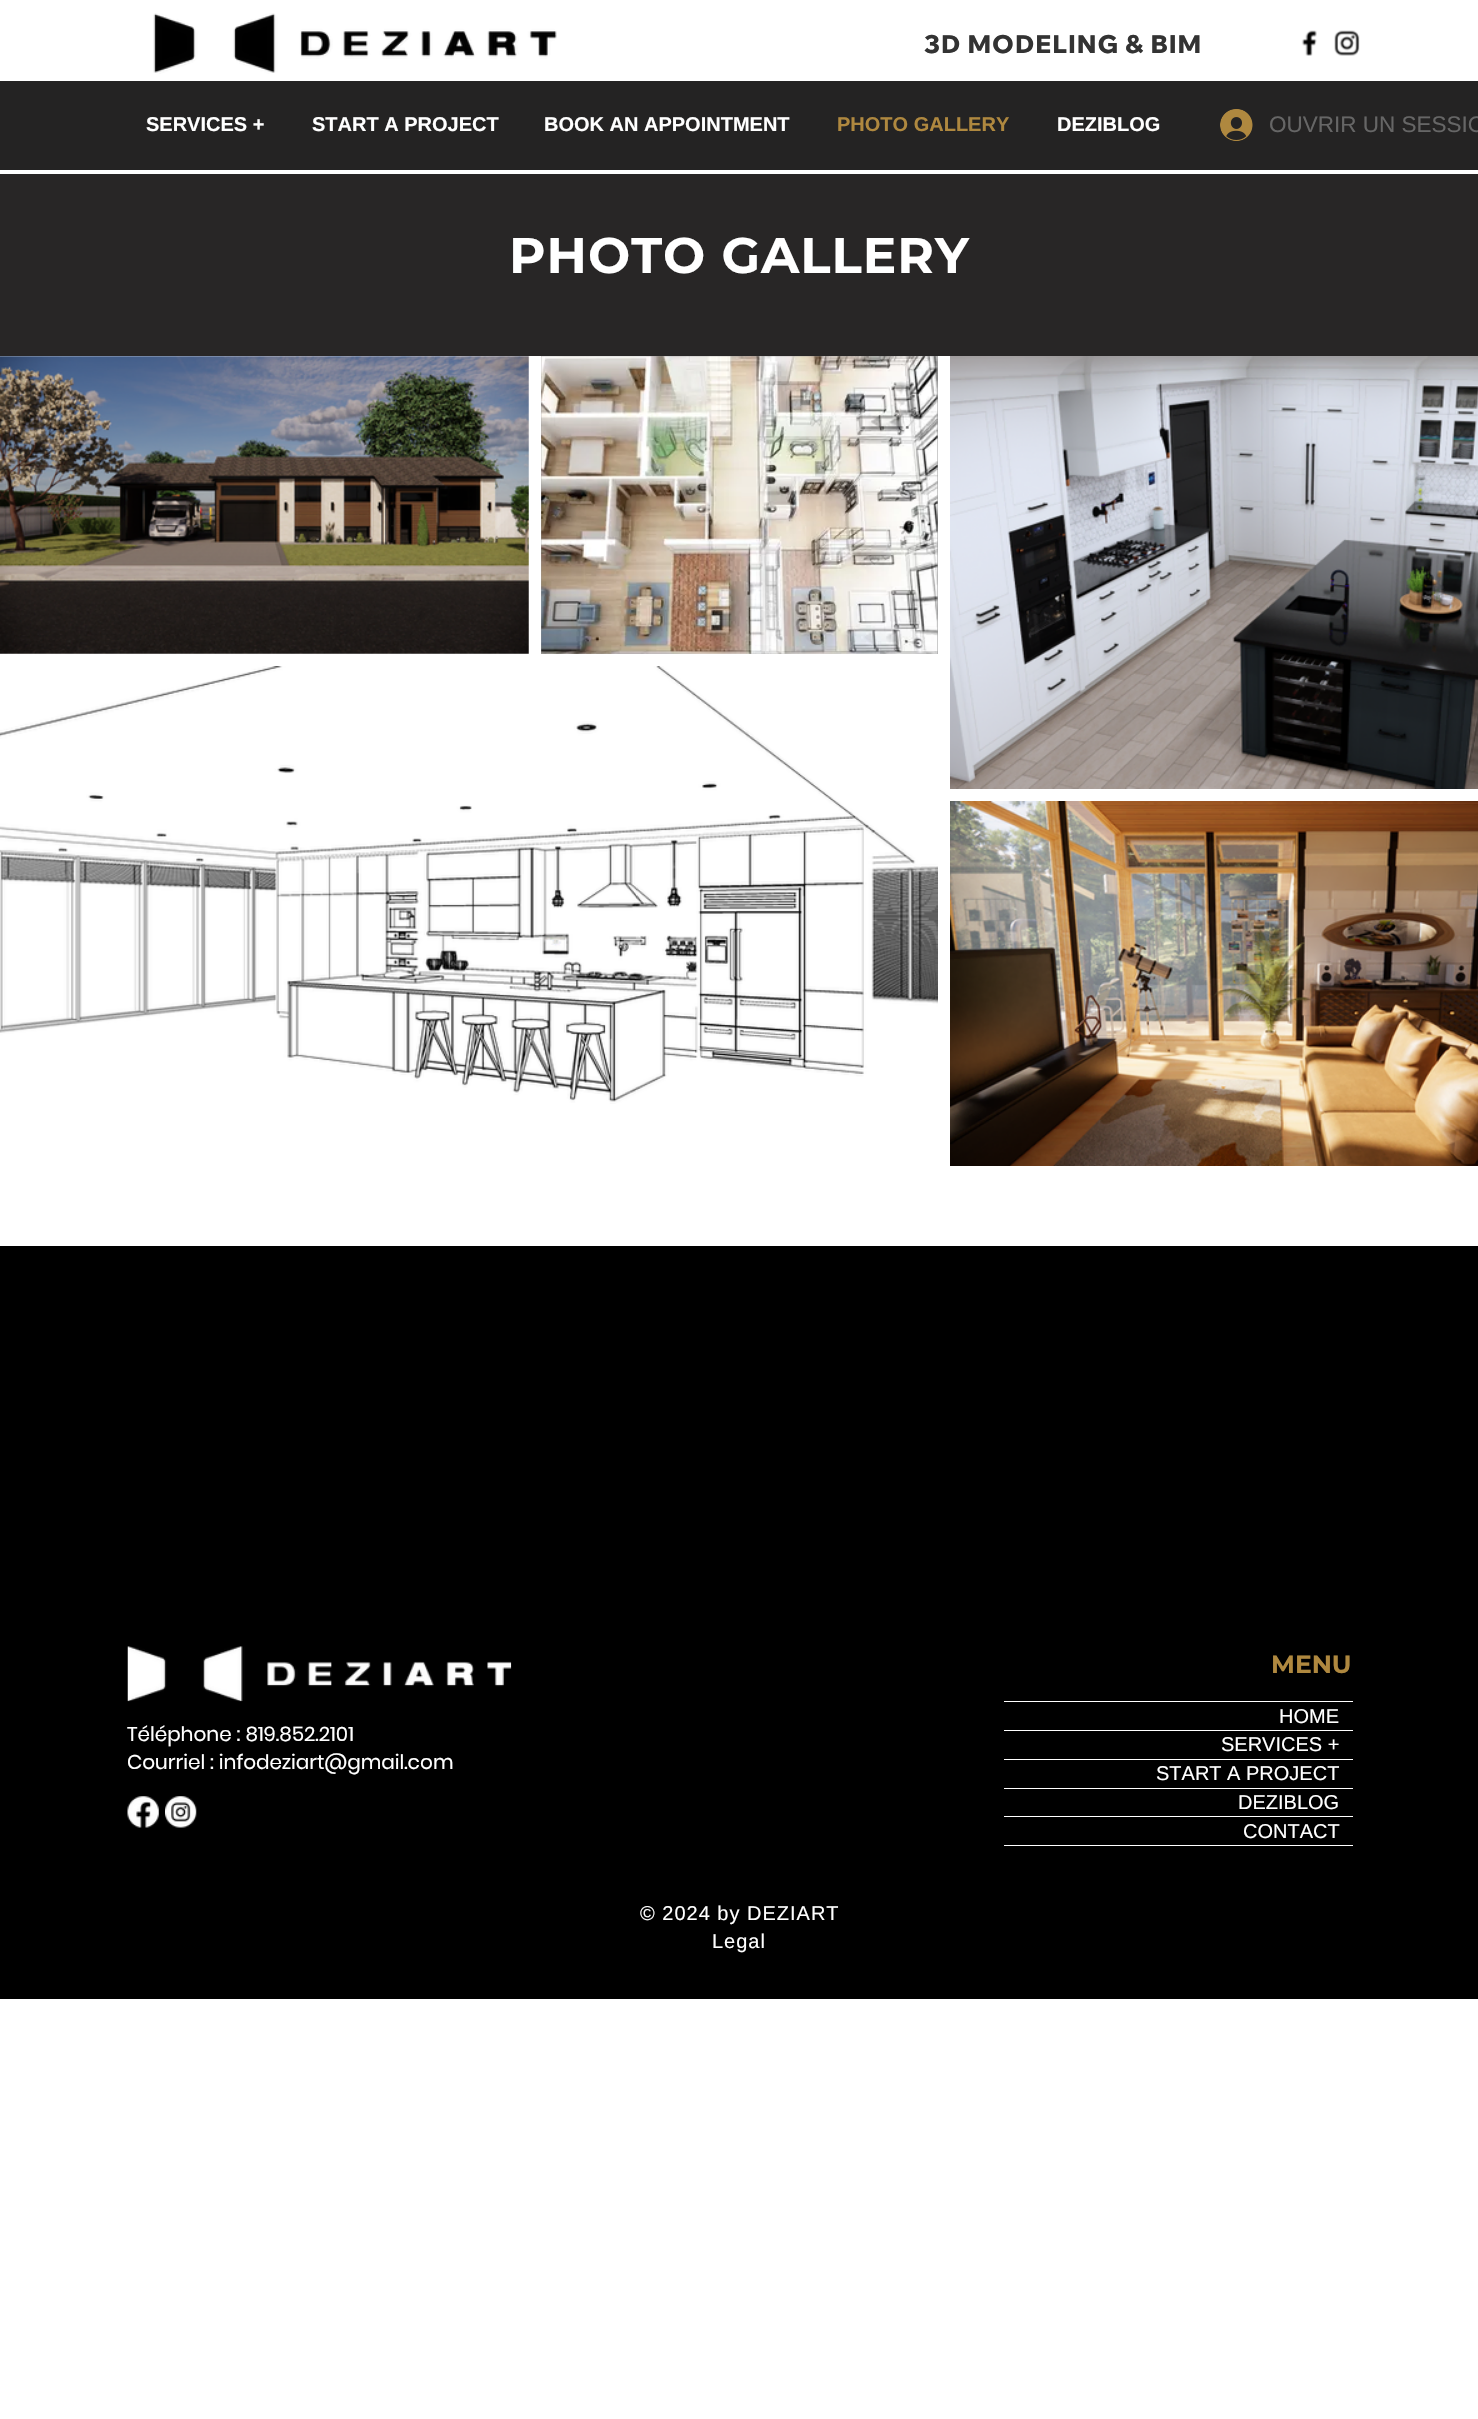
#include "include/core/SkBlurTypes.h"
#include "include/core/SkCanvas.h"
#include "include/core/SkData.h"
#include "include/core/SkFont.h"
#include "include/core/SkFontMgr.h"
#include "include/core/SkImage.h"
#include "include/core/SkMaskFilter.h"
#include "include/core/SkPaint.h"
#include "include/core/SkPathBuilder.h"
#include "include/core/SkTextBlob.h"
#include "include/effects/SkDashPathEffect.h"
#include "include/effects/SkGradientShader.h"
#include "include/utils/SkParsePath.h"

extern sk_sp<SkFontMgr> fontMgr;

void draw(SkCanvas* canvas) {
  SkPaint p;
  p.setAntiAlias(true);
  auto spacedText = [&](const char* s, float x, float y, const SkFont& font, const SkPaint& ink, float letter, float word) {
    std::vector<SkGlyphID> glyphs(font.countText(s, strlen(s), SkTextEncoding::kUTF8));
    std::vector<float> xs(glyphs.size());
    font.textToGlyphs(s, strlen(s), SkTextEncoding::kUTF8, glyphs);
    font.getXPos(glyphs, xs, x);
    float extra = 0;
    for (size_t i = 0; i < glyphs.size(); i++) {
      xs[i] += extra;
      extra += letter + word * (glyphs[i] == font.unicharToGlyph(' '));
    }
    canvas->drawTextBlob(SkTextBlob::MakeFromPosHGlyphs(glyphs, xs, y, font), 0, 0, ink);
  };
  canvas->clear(SK_ColorWHITE);
  canvas->drawImageRect(SkImages::DeferredFromEncodedData(SkData::MakeFromFileName("images/1.png")), SkRect::MakeLTRB(153, 13, 557, 74), SkSamplingOptions());
  canvas->drawImageRect(SkImages::DeferredFromEncodedData(SkData::MakeFromFileName("images/2.png")), SkRect::MakeLTRB(1301, 30, 1317, 56), SkSamplingOptions());
  canvas->drawImageRect(SkImages::DeferredFromEncodedData(SkData::MakeFromFileName("images/3.png")), SkRect::MakeLTRB(1334, 30, 1360, 56), SkSamplingOptions());
  p.setColor(SkColorSetRGB(36, 35, 35));
  canvas->drawRect(SkRect::MakeLTRB(0, 81, 1478, 170), p);
  canvas->drawImageRect(SkImages::DeferredFromEncodedData(SkData::MakeFromFileName("images/4.png")), SkRect::MakeLTRB(1220, 109, 1253, 141), SkSamplingOptions());
  p.setColor(SkColorSetRGB(40, 38, 38));
  canvas->drawRect(SkRect::MakeLTRB(0, 174, 1478, 356), p);
  canvas->drawImageRect(SkImages::DeferredFromEncodedData(SkData::MakeFromFileName("images/5.png")), SkRect::MakeLTRB(0, 356, 529, 654), SkSamplingOptions());
  p.setColor(SkColorSetRGB(153, 153, 153));
  canvas->drawRect(SkRect::MakeLTRB(541, 356, 938, 654), p);
  canvas->drawImageRect(SkImages::DeferredFromEncodedData(SkData::MakeFromFileName("images/6.png")), SkRect::MakeLTRB(541, 356, 938, 654), SkSamplingOptions());
  canvas->drawImageRect(SkImages::DeferredFromEncodedData(SkData::MakeFromFileName("images/7.png")), SkRect::MakeLTRB(0, 666, 938, 1104), SkSamplingOptions());
  canvas->drawImageRect(SkImages::DeferredFromEncodedData(SkData::MakeFromFileName("images/8.png")), SkRect::MakeLTRB(950, 356, 1478, 789), SkSamplingOptions());
  canvas->drawImageRect(SkImages::DeferredFromEncodedData(SkData::MakeFromFileName("images/9.png")), SkRect::MakeLTRB(950, 801, 1478, 1166), SkSamplingOptions());
  p.setColor(SK_ColorBLACK);
  canvas->drawRect(SkRect::MakeLTRB(0, 1246, 1478, 1999), p);
  canvas->drawImageRect(SkImages::DeferredFromEncodedData(SkData::MakeFromFileName("images/10.png")), SkRect::MakeLTRB(127, 1646, 512, 1702), SkSamplingOptions());
  p.setColor(SK_ColorWHITE);
  canvas->drawRect(SkRect::MakeLTRB(1004, 1701, 1353, 1702), p);
  canvas->drawRect(SkRect::MakeLTRB(1004, 1845, 1353, 1846), p);
  canvas->drawRect(SkRect::MakeLTRB(1004, 1730, 1353, 1731), p);
  canvas->drawRect(SkRect::MakeLTRB(1004, 1759, 1353, 1760), p);
  canvas->drawRect(SkRect::MakeLTRB(1004, 1788, 1353, 1789), p);
  canvas->drawRect(SkRect::MakeLTRB(1004, 1816, 1353, 1817), p);
  canvas->drawImageRect(SkImages::DeferredFromEncodedData(SkData::MakeFromFileName("images/11.png")), SkRect::MakeLTRB(127, 1796, 159, 1828), SkSamplingOptions());
  canvas->drawImageRect(SkImages::DeferredFromEncodedData(SkData::MakeFromFileName("images/12.png")), SkRect::MakeLTRB(165, 1796, 197, 1828), SkSamplingOptions());
  SkFont font1(fontMgr->matchFamilyStyle("Wix Madefor Display", SkFontStyle(800, SkFontStyle::kNormal_Width, SkFontStyle::kUpright_Slant)), 25);
  font1.setSubpixel(true);
  p.setColor(SkColorSetRGB(51, 51, 51));
  spacedText("3D MODELING & BIM", 924, 53, font1, p, 1.25f, 0);
  SkFont font2(fontMgr->matchFamilyStyle("Liberation Sans", SkFontStyle::Bold()), 20);
  font2.setSubpixel(true);
  p.setColor(SK_ColorWHITE);
  canvas->drawString("SERVICES +", 146, 131, font2, p);
  canvas->drawString("START A PROJECT", 312, 131, font2, p);
  canvas->drawString("BOOK AN APPOINTMENT", 544, 131, font2, p);
  p.setColor(SkColorSetRGB(175, 136, 63));
  canvas->drawString("PHOTO GALLERY", 837, 131, font2, p);
  p.setColor(SK_ColorWHITE);
  canvas->drawString("DEZIBLOG", 1057, 131, font2, p);
  SkFont font3(fontMgr->matchFamilyStyle("Liberation Sans", SkFontStyle::Normal()), 22.5f);
  font3.setSubpixel(true);
  p.setColor(SkColorSetRGB(102, 102, 102));
  canvas->drawString("OUVRIR UN SESSIO", 1269, 132, font3, p);
  SkFont font4(fontMgr->matchFamilyStyle("Montserrat", SkFontStyle::Bold()), 50);
  font4.setSubpixel(true);
  p.setColor(SK_ColorWHITE);
  spacedText("PHOTO GALLERY", 509, 273, font4, p, 1, 0);
  SkFont font5(fontMgr->matchFamilyStyle("Montserrat", SkFontStyle::Bold()), 25);
  font5.setSubpixel(true);
  p.setColor(SkColorSetRGB(175, 136, 63));
  canvas->drawString("MENU", 1271, 1673, font5, p);
  SkFont font6(fontMgr->matchFamilyStyle("Poppins", SkFontStyle::Normal()), 20);
  font6.setSubpixel(true);
  p.setColor(SK_ColorWHITE);
  canvas->drawString("Téléphone : 819.852.2101", 127, 1741, font6, p);
  canvas->drawString("Courriel : infodeziart@gmail.com", 127, 1769, font6, p);
  SkFont font7(fontMgr->matchFamilyStyle("Liberation Sans", SkFontStyle::Normal()), 20);
  font7.setSubpixel(true);
  canvas->drawString("HOME", 1279, 1723, font7, p);
  canvas->drawString("SERVICES +", 1221, 1751, font7, p);
  canvas->drawString("START A PROJECT", 1156, 1780, font7, p);
  canvas->drawString("DEZIBLOG", 1238, 1809, font7, p);
  canvas->drawString("CONTACT", 1243, 1838, font7, p);
  spacedText("© 2024 by DEZIART", 640, 1920, font7, p, 1, 0);
  spacedText("Legal", 712, 1948, font7, p, 1, 0);
}
